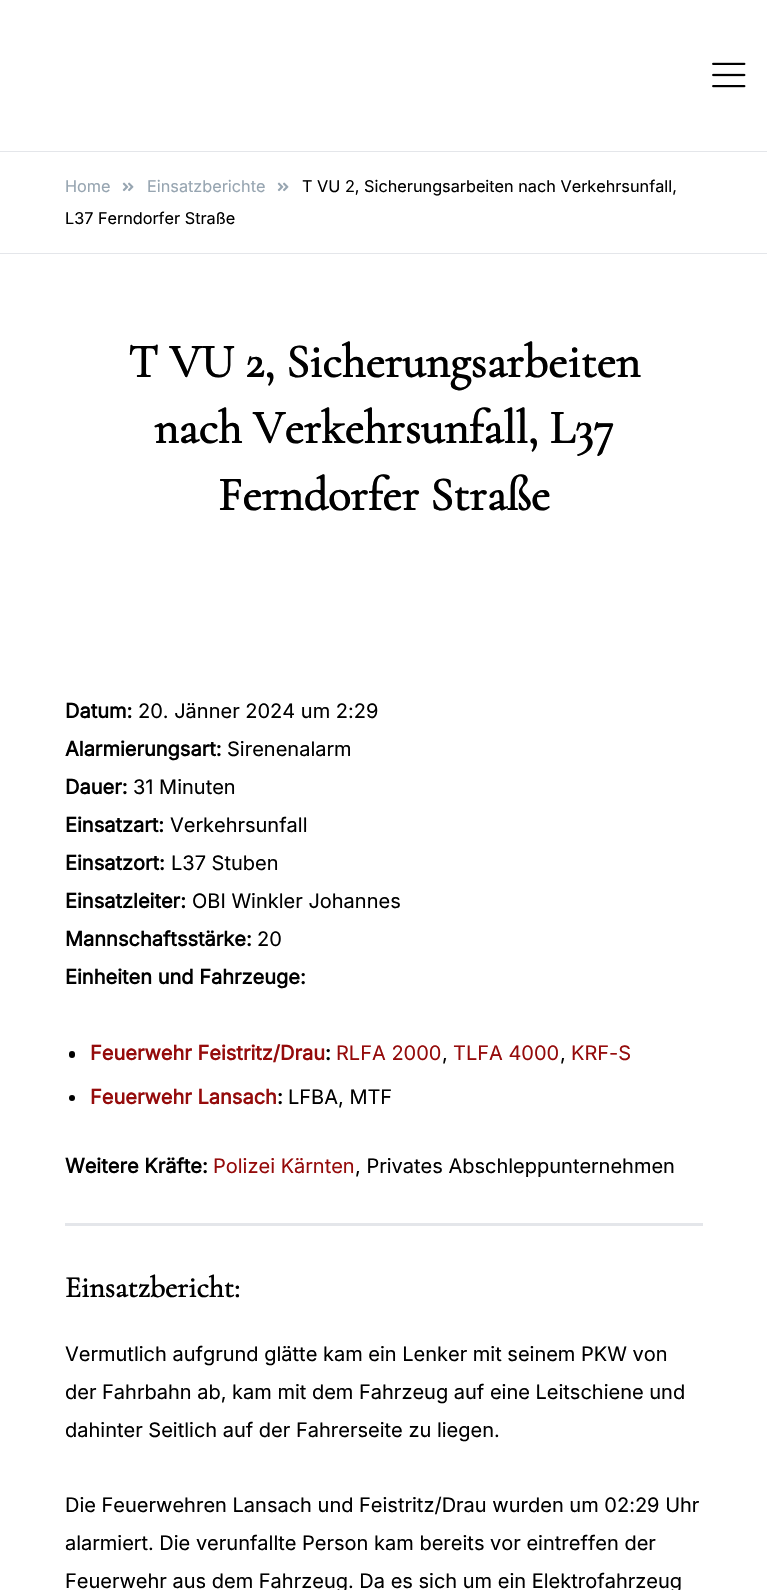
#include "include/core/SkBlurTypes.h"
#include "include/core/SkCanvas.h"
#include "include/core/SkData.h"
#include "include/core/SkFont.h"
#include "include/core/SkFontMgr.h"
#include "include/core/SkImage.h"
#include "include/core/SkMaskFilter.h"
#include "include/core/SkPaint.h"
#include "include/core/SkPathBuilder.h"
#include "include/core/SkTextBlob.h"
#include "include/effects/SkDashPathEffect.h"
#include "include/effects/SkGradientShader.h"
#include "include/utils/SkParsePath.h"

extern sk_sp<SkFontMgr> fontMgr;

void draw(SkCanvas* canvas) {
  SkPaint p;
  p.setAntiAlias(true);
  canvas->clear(SK_ColorWHITE);
  p.setColor(SkColorSetRGB(228, 230, 234));
  canvas->drawRect(SkRect::MakeLTRB(0, 151, 767, 152), p);
  canvas->drawImageRect(SkImages::DeferredFromEncodedData(SkData::MakeFromFileName("images/1.png")), SkRect::MakeLTRB(712, 62, 746, 88), SkSamplingOptions());
  canvas->drawRect(SkRect::MakeLTRB(0, 253, 767, 254), p);
  canvas->drawImageRect(SkImages::DeferredFromEncodedData(SkData::MakeFromFileName("images/2.png")), SkRect::MakeLTRB(122, 182, 134, 192), SkSamplingOptions());
  canvas->drawImageRect(SkImages::DeferredFromEncodedData(SkData::MakeFromFileName("images/2.png")), SkRect::MakeLTRB(277, 182, 289, 192), SkSamplingOptions());
  p.setColor(SK_ColorBLACK);
  canvas->drawRoundRect(SkRect::MakeLTRB(69, 1051, 75, 1058), 3, 3, p);
  canvas->drawCircle(72, 1098, 3, p);
  p.setColor(SkColorSetRGB(228, 230, 234));
  canvas->drawRect(SkRect::MakeLTRB(65, 1223, 703, 1226), p);
  SkFont font1(fontMgr->matchFamilyStyle("Inter", SkFontStyle::Normal()), 16.25f);
  font1.setSubpixel(true);
  p.setColor(SkColorSetRGB(151, 165, 177));
  canvas->drawString("Home", 65, 192, font1, p);
  canvas->drawString("Einsatzberichte", 147, 192, font1, p);
  p.setColor(SK_ColorBLACK);
  canvas->drawString("T VU 2, Sicherungsarbeiten nach Verkehrsunfall,", 302, 192, font1, p);
  canvas->drawString("L37 Ferndorfer Straße", 65, 224, font1, p);
  SkFont font2(fontMgr->matchFamilyStyle("Cormorant", SkFontStyle::Bold()), 47.5f);
  font2.setSubpixel(true);
  canvas->drawString("T VU 2, Sicherungsarbeiten", 128, 377, font2, p);
  canvas->drawString("nach Verkehrsunfall, L37", 154, 443, font2, p);
  canvas->drawString("Ferndorfer Straße", 218, 510, font2, p);
  SkFont font3(fontMgr->matchFamilyStyle("Inter", SkFontStyle::Bold()), 20);
  font3.setSubpixel(true);
  canvas->drawString("Datum:", 65, 718, font3, p);
  SkFont font4(fontMgr->matchFamilyStyle("Inter", SkFontStyle::Normal()), 20);
  font4.setSubpixel(true);
  canvas->drawString("20. Jänner 2024 um 2:29", 138, 718, font4, p);
  canvas->drawString("Alarmierungsart:", 65, 756, font3, p);
  canvas->drawString("Sirenenalarm", 227, 756, font4, p);
  canvas->drawString("Dauer:", 65, 794, font3, p);
  canvas->drawString("31 Minuten", 133, 794, font4, p);
  canvas->drawString("Einsatzart:", 65, 832, font3, p);
  canvas->drawString("Verkehrsunfall", 170, 832, font4, p);
  canvas->drawString("Einsatzort:", 65, 870, font3, p);
  canvas->drawString("L37 Stuben", 171, 870, font4, p);
  canvas->drawString("Einsatzleiter:", 65, 908, font3, p);
  canvas->drawString("OBI Winkler Johannes", 192, 908, font4, p);
  canvas->drawString("Mannschaftsstärke:", 65, 946, font3, p);
  canvas->drawString("20", 257, 946, font4, p);
  canvas->drawString("Einheiten und Fahrzeuge:", 65, 984, font3, p);
  p.setColor(SkColorSetRGB(149, 11, 11));
  canvas->drawString("Feuerwehr Feistritz/Drau", 90, 1060, font3, p);
  p.setColor(SK_ColorBLACK);
  canvas->drawString(":", 325, 1060, font3, p);
  p.setColor(SkColorSetRGB(149, 11, 11));
  canvas->drawString("RLFA 2000", 336, 1060, font4, p);
  canvas->drawString("TLFA 4000", 453, 1060, font4, p);
  canvas->drawString("KRF-S", 571, 1060, font4, p);
  p.setColor(SK_ColorBLACK);
  canvas->drawString(",", 442, 1060, font4, p);
  canvas->drawString(",", 560, 1060, font4, p);
  p.setColor(SkColorSetRGB(149, 11, 11));
  canvas->drawString("Feuerwehr Lansach", 90, 1104, font3, p);
  p.setColor(SK_ColorBLACK);
  canvas->drawString(":", 277, 1104, font3, p);
  canvas->drawString("LFBA, MTF", 288, 1104, font4, p);
  canvas->drawString("Weitere Kräfte:", 65, 1173, font3, p);
  p.setColor(SkColorSetRGB(149, 11, 11));
  canvas->drawString("Polizei Kärnten", 213, 1173, font4, p);
  p.setColor(SK_ColorBLACK);
  canvas->drawString(", Privates Abschleppunternehmen", 355, 1173, font4, p);
  SkFont font5(fontMgr->matchFamilyStyle("Cormorant", SkFontStyle::Bold()), 30);
  font5.setSubpixel(true);
  canvas->drawString("Einsatzbericht:", 65, 1297, font5, p);
  canvas->drawString("Vermutlich aufgrund glätte kam ein Lenker mit seinem PKW von", 65, 1361, font4, p);
  canvas->drawString("der Fahrbahn ab, kam mit dem Fahrzeug auf eine Leitschiene und", 65, 1399, font4, p);
  canvas->drawString("dahinter Seitlich auf der Fahrerseite zu liegen.", 65, 1437, font4, p);
  canvas->drawString("Die Feuerwehren Lansach und Feistritz/Drau wurden um 02:29 Uhr", 65, 1512, font4, p);
  canvas->drawString("alarmiert. Die verunfallte Person kam bereits vor eintreffen der", 65, 1550, font4, p);
  canvas->drawString("Feuerwehr aus dem Fahrzeug. Da es sich um ein Elektrofahrzeug", 65, 1588, font4, p);
}
